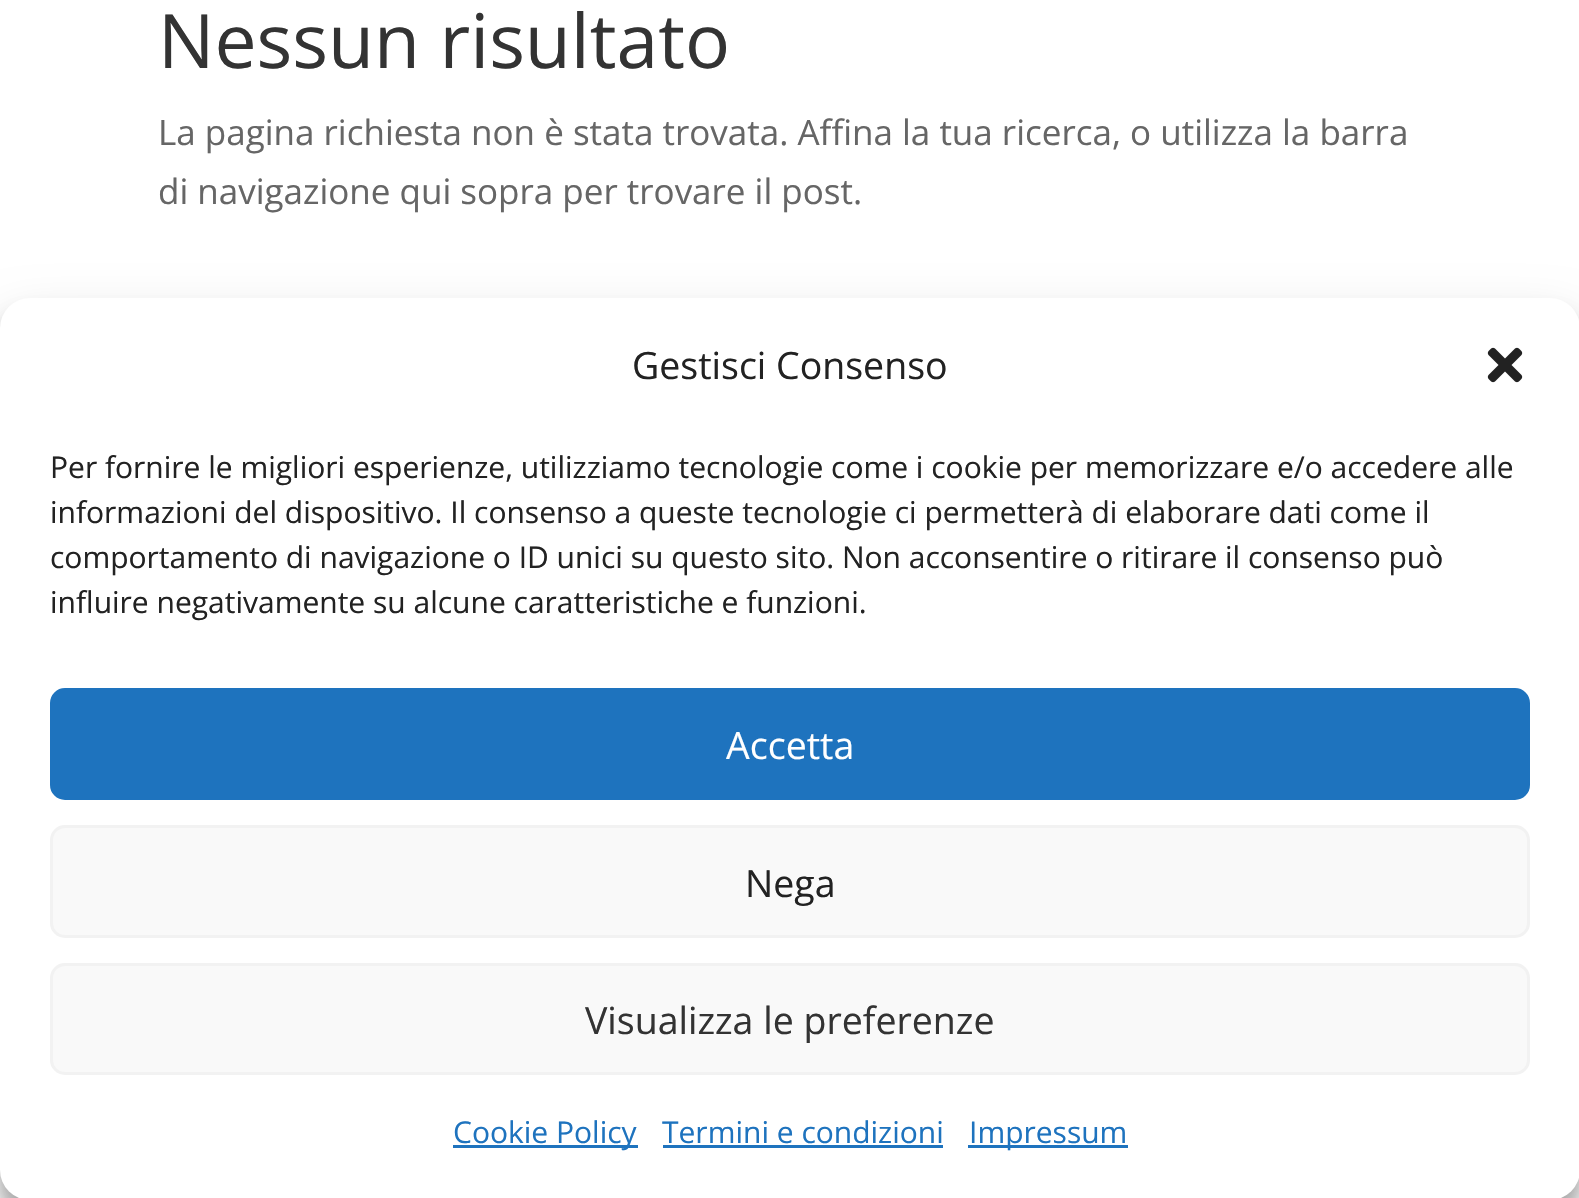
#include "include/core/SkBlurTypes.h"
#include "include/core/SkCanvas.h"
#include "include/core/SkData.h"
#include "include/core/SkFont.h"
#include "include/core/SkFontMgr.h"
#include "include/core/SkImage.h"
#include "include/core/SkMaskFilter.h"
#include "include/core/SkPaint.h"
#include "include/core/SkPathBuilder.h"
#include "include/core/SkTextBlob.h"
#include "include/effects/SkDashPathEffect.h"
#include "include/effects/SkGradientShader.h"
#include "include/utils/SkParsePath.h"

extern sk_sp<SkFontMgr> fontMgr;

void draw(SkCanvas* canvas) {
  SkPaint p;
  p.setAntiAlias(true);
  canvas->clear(SK_ColorWHITE);
  p.setColor(SkColorSetARGB(59, 0, 0, 0));
  p.setMaskFilter(SkMaskFilter::MakeBlur(kNormal_SkBlurStyle, 7.5f));
  canvas->drawRoundRect(SkRect::MakeLTRB(0, 313, 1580, 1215), 30, 30, p);
  p.setMaskFilter(nullptr);
  p.setColor(SkColorSetARGB(48, 0, 0, 0));
  p.setMaskFilter(SkMaskFilter::MakeBlur(kNormal_SkBlurStyle, 25));
  canvas->drawRoundRect(SkRect::MakeLTRB(0, 323, 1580, 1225), 30, 30, p);
  p.setMaskFilter(nullptr);
  p.setColor(SK_ColorWHITE);
  canvas->drawRoundRect(SkRect::MakeLTRB(0, 298, 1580, 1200), 30, 30, p);
  canvas->drawImageRect(SkImages::DeferredFromEncodedData(SkData::MakeFromFileName("images/1.png")), SkRect::MakeLTRB(1487, 347, 1523, 383), SkSamplingOptions());
  p.setColor(SkColorSetRGB(30, 115, 190));
  canvas->drawRoundRect(SkRect::MakeLTRB(51.5f, 689.5f, 1528.5f, 798.5f), 13.5f, 13.5f, p);
  p.setStyle(SkPaint::kStroke_Style);
  p.setStrokeWidth(3);
  canvas->drawRoundRect(SkRect::MakeLTRB(51.5f, 689.5f, 1528.5f, 798.5f), 13.5f, 13.5f, p);
  p.setStyle(SkPaint::kFill_Style);
  p.setColor(SkColorSetRGB(249, 249, 249));
  canvas->drawRoundRect(SkRect::MakeLTRB(51.5f, 826.5f, 1528.5f, 936.5f), 13.5f, 13.5f, p);
  p.setStyle(SkPaint::kStroke_Style);
  p.setColor(SkColorSetRGB(242, 242, 242));
  canvas->drawRoundRect(SkRect::MakeLTRB(51.5f, 826.5f, 1528.5f, 936.5f), 13.5f, 13.5f, p);
  p.setStyle(SkPaint::kFill_Style);
  p.setColor(SkColorSetRGB(249, 249, 249));
  canvas->drawRoundRect(SkRect::MakeLTRB(51.5f, 964.5f, 1528.5f, 1073.5f), 13.5f, 13.5f, p);
  p.setStyle(SkPaint::kStroke_Style);
  p.setColor(SkColorSetRGB(242, 242, 242));
  canvas->drawRoundRect(SkRect::MakeLTRB(51.5f, 964.5f, 1528.5f, 1073.5f), 13.5f, 13.5f, p);
  p.setStyle(SkPaint::kFill_Style);
  p.setColor(SkColorSetRGB(30, 115, 190));
  canvas->drawRect(SkRect::MakeLTRB(453, 1145, 638, 1148), p);
  canvas->drawRect(SkRect::MakeLTRB(663, 1145, 943, 1148), p);
  canvas->drawRect(SkRect::MakeLTRB(968, 1145, 1128, 1148), p);
  SkFont font1(fontMgr->matchFamilyStyle("Open Sans", SkFontStyle::Normal()), 75);
  font1.setSubpixel(true);
  p.setColor(SkColorSetRGB(51, 51, 51));
  canvas->drawString("Nessun risultato", 158, 68, font1, p);
  SkFont font2(fontMgr->matchFamilyStyle("Open Sans", SkFontStyle::Normal()), 35);
  font2.setSubpixel(true);
  p.setColor(SkColorSetRGB(102, 102, 102));
  canvas->drawString("La pagina richiesta non è stata trovata. Affina la tua ricerca, o utilizza la barra", 158, 145, font2, p);
  canvas->drawString("di navigazione qui sopra per trovare il post.", 158, 204, font2, p);
  SkFont font3(fontMgr->matchFamilyStyle("Open Sans", SkFontStyle::Normal()), 37.5f);
  font3.setSubpixel(true);
  p.setColor(SkColorSetRGB(34, 34, 34));
  canvas->drawString("Gestisci Consenso", 632, 379, font3, p);
  SkFont font4(fontMgr->matchFamilyStyle("Open Sans", SkFontStyle::Normal()), 30);
  font4.setSubpixel(true);
  canvas->drawString("Per fornire le migliori esperienze, utilizziamo tecnologie come i cookie per memorizzare e/o accedere alle", 50, 478, font4, p);
  canvas->drawString("informazioni del dispositivo. Il consenso a queste tecnologie ci permetterà di elaborare dati come il", 50, 523, font4, p);
  canvas->drawString("comportamento di navigazione o ID unici su questo sito. Non acconsentire o ritirare il consenso può", 50, 568, font4, p);
  canvas->drawString("influire negativamente su alcune caratteristiche e funzioni.", 50, 613, font4, p);
  p.setColor(SK_ColorWHITE);
  canvas->drawString("Accetta", 726, 759, font3, p);
  p.setColor(SkColorSetRGB(34, 34, 34));
  canvas->drawString("Nega", 745, 897, font3, p);
  p.setColor(SkColorSetRGB(51, 51, 51));
  canvas->drawString("Visualizza le preferenze", 585, 1034, font3, p);
  p.setColor(SkColorSetRGB(30, 115, 190));
  canvas->drawString("Cookie Policy", 453, 1143, font4, p);
  canvas->drawString("Termini e condizioni", 662, 1143, font4, p);
  canvas->drawString("Impressum", 969, 1143, font4, p);
}
